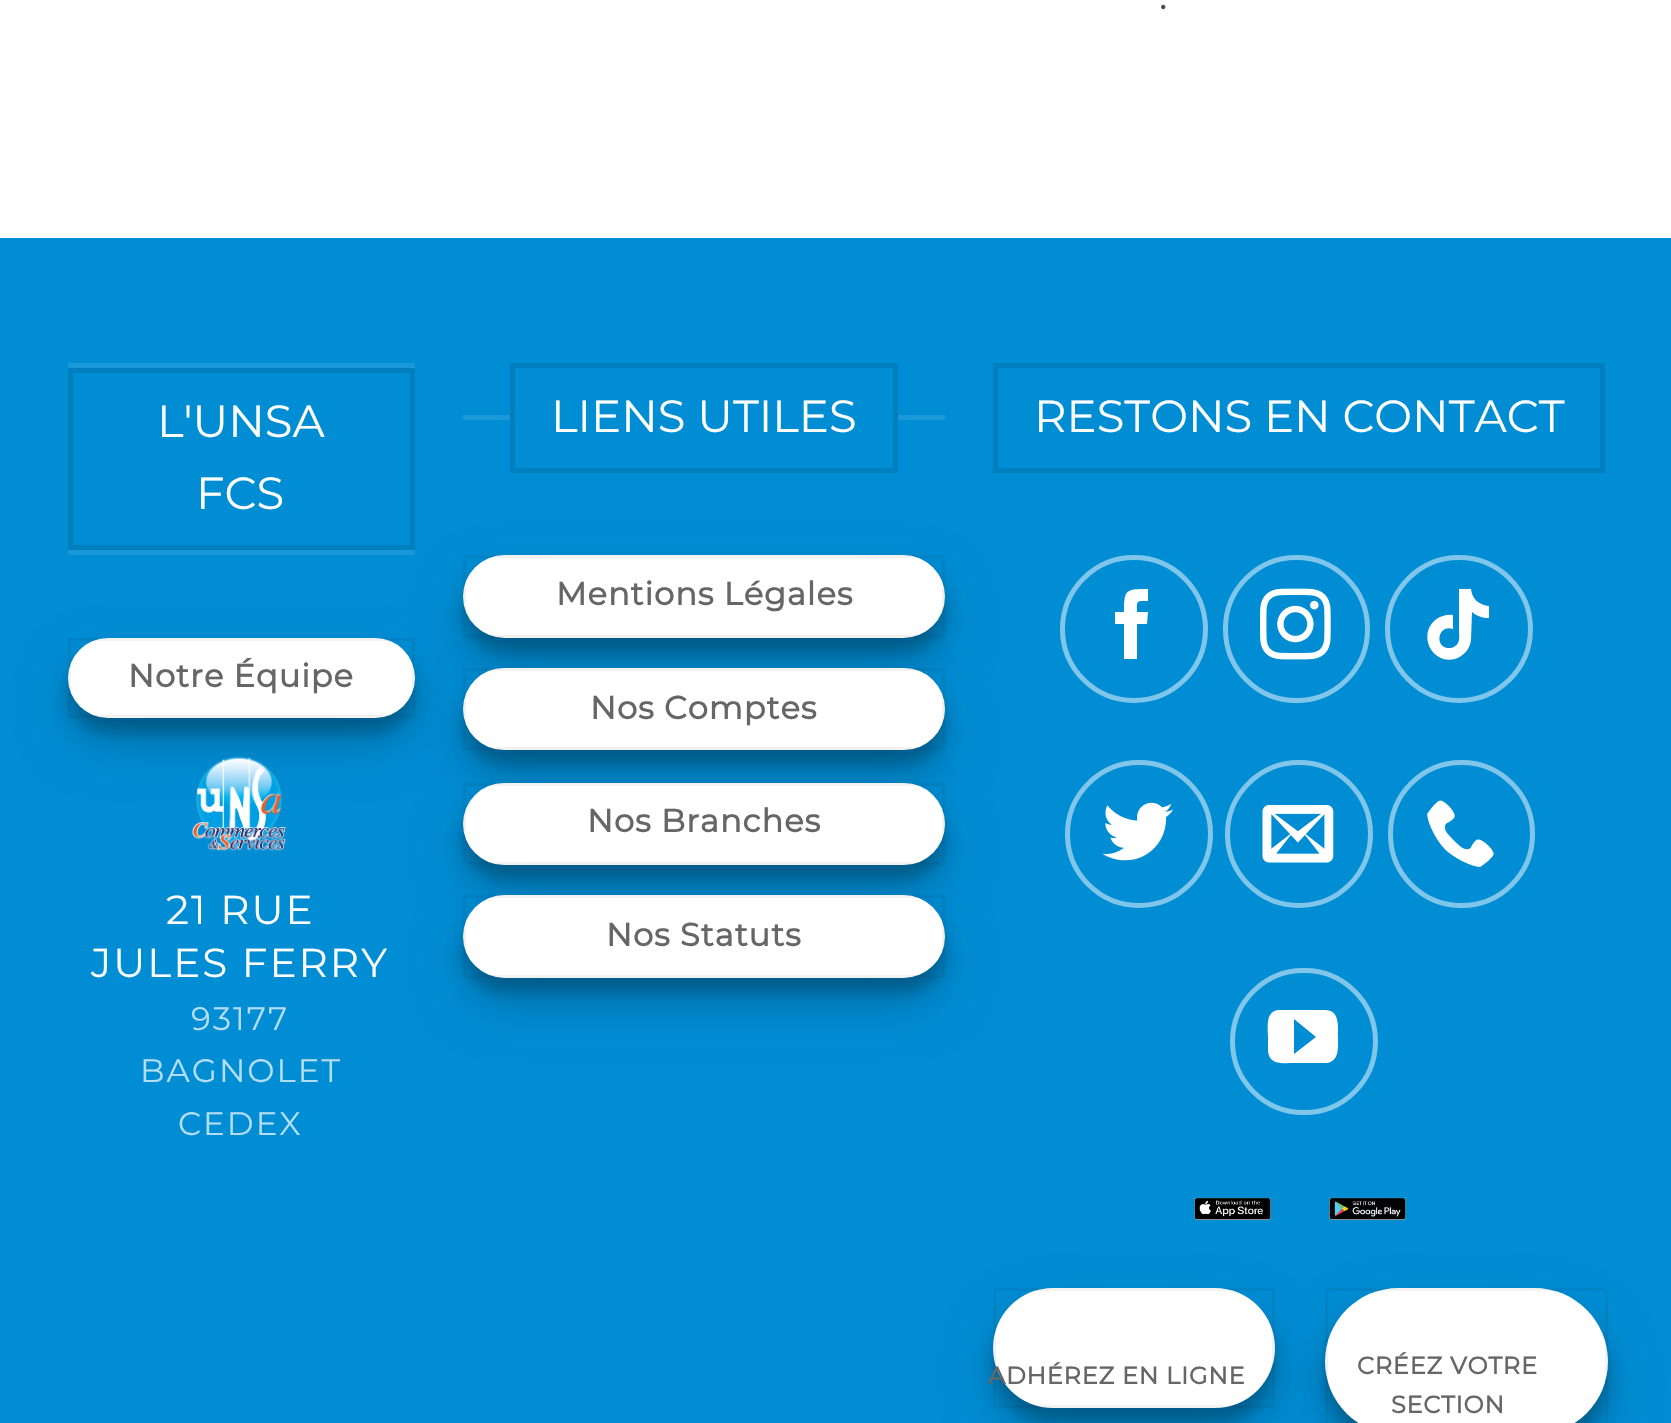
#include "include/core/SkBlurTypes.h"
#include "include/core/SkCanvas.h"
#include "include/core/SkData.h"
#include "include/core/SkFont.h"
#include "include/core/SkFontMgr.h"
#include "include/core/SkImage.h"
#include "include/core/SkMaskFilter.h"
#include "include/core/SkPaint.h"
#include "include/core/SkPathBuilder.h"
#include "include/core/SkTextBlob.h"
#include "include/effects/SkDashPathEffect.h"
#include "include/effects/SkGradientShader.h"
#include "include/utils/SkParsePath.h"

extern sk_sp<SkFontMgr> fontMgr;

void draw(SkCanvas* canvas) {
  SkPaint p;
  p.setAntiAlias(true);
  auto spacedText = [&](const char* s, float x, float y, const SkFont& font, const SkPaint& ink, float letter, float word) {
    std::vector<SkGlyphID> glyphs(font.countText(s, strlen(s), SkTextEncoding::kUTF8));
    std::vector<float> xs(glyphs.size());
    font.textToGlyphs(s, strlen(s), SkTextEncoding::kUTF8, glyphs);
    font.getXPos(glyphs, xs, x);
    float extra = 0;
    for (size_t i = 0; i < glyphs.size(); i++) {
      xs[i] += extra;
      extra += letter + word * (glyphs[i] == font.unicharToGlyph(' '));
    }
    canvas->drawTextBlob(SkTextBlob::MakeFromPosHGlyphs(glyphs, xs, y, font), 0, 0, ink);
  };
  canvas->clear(SK_ColorWHITE);
  p.setColor(SkColorSetRGB(0, 141, 212));
  canvas->drawRect(SkRect::MakeLTRB(0, 238, 1671, 1423), p);
  p.setColor(SkColorSetRGB(26, 152, 216));
  canvas->drawRect(SkRect::MakeLTRB(68, 363, 415, 368), p);
  p.setStyle(SkPaint::kStroke_Style);
  p.setStrokeWidth(5);
  p.setColor(SkColorSetRGB(0, 127, 191));
  canvas->drawRect(SkRect::MakeLTRB(70.5f, 370.5f, 412.5f, 547.5f), p);
  p.setStyle(SkPaint::kFill_Style);
  p.setColor(SkColorSetRGB(26, 152, 216));
  canvas->drawRect(SkRect::MakeLTRB(68, 550, 415, 555), p);
  p.setColor(SkColorSetARGB(56, 0, 0, 0));
  p.setMaskFilter(SkMaskFilter::MakeBlur(kNormal_SkBlurStyle, 7.5f));
  canvas->drawRoundRect(SkRect::MakeLTRB(68, 653, 415, 733), 40, 40, p);
  p.setMaskFilter(nullptr);
  p.setColor(SkColorSetARGB(48, 0, 0, 0));
  p.setMaskFilter(SkMaskFilter::MakeBlur(kNormal_SkBlurStyle, 25));
  canvas->drawRoundRect(SkRect::MakeLTRB(68, 663, 415, 743), 40, 40, p);
  p.setMaskFilter(nullptr);
  p.setColor(SK_ColorWHITE);
  canvas->drawRoundRect(SkRect::MakeLTRB(68, 638, 415, 718), 40, 40, p);
  p.setStyle(SkPaint::kStroke_Style);
  p.setStrokeWidth(3);
  p.setColor(SkColorSetARGB(13, 0, 0, 0));
  canvas->drawRect(SkRect::MakeLTRB(69.5f, 639.5f, 413.5f, 716.5f), p);
  canvas->drawImageRect(SkImages::DeferredFromEncodedData(SkData::MakeFromFileName("images/1.png")), SkRect::MakeLTRB(192, 756, 286, 851), SkSamplingOptions());
  p.setStyle(SkPaint::kFill_Style);
  p.setColor(SkColorSetRGB(26, 152, 216));
  canvas->drawRect(SkRect::MakeLTRB(463, 415, 510, 420), p);
  p.setStyle(SkPaint::kStroke_Style);
  p.setStrokeWidth(5);
  p.setColor(SkColorSetRGB(0, 127, 191));
  canvas->drawRect(SkRect::MakeLTRB(512.5f, 365.5f, 895.5f, 470.5f), p);
  p.setStyle(SkPaint::kFill_Style);
  p.setColor(SkColorSetRGB(26, 152, 216));
  canvas->drawRect(SkRect::MakeLTRB(898, 415, 945, 420), p);
  p.setColor(SkColorSetARGB(56, 0, 0, 0));
  p.setMaskFilter(SkMaskFilter::MakeBlur(kNormal_SkBlurStyle, 7.5f));
  canvas->drawRoundRect(SkRect::MakeLTRB(463, 570, 945, 653), 41.5f, 41.5f, p);
  p.setMaskFilter(nullptr);
  p.setColor(SkColorSetARGB(48, 0, 0, 0));
  p.setMaskFilter(SkMaskFilter::MakeBlur(kNormal_SkBlurStyle, 25));
  canvas->drawRoundRect(SkRect::MakeLTRB(463, 580, 945, 663), 41.5f, 41.5f, p);
  p.setMaskFilter(nullptr);
  p.setColor(SK_ColorWHITE);
  canvas->drawRoundRect(SkRect::MakeLTRB(463, 555, 945, 638), 41.5f, 41.5f, p);
  p.setStyle(SkPaint::kStroke_Style);
  p.setStrokeWidth(3);
  p.setColor(SkColorSetARGB(13, 0, 0, 0));
  canvas->drawRect(SkRect::MakeLTRB(464.5f, 556.5f, 943.5f, 636.5f), p);
  p.setStyle(SkPaint::kFill_Style);
  p.setColor(SkColorSetARGB(56, 0, 0, 0));
  p.setMaskFilter(SkMaskFilter::MakeBlur(kNormal_SkBlurStyle, 7.5f));
  canvas->drawRoundRect(SkRect::MakeLTRB(463, 683, 945, 765), 41, 41, p);
  p.setMaskFilter(nullptr);
  p.setColor(SkColorSetARGB(48, 0, 0, 0));
  p.setMaskFilter(SkMaskFilter::MakeBlur(kNormal_SkBlurStyle, 25));
  canvas->drawRoundRect(SkRect::MakeLTRB(463, 693, 945, 775), 41, 41, p);
  p.setMaskFilter(nullptr);
  p.setColor(SK_ColorWHITE);
  canvas->drawRoundRect(SkRect::MakeLTRB(463, 668, 945, 750), 41, 41, p);
  p.setStyle(SkPaint::kStroke_Style);
  p.setColor(SkColorSetARGB(13, 0, 0, 0));
  canvas->drawRect(SkRect::MakeLTRB(464.5f, 669.5f, 943.5f, 748.5f), p);
  p.setStyle(SkPaint::kFill_Style);
  p.setColor(SkColorSetARGB(56, 0, 0, 0));
  p.setMaskFilter(SkMaskFilter::MakeBlur(kNormal_SkBlurStyle, 7.5f));
  canvas->drawRoundRect(SkRect::MakeLTRB(463, 798, 945, 880), 41, 41, p);
  p.setMaskFilter(nullptr);
  p.setColor(SkColorSetARGB(48, 0, 0, 0));
  p.setMaskFilter(SkMaskFilter::MakeBlur(kNormal_SkBlurStyle, 25));
  canvas->drawRoundRect(SkRect::MakeLTRB(463, 808, 945, 890), 41, 41, p);
  p.setMaskFilter(nullptr);
  p.setColor(SK_ColorWHITE);
  canvas->drawRoundRect(SkRect::MakeLTRB(463, 783, 945, 865), 41, 41, p);
  p.setStyle(SkPaint::kStroke_Style);
  p.setColor(SkColorSetARGB(13, 0, 0, 0));
  canvas->drawRect(SkRect::MakeLTRB(464.5f, 784.5f, 943.5f, 863.5f), p);
  p.setStyle(SkPaint::kFill_Style);
  p.setColor(SkColorSetARGB(56, 0, 0, 0));
  p.setMaskFilter(SkMaskFilter::MakeBlur(kNormal_SkBlurStyle, 7.5f));
  canvas->drawRoundRect(SkRect::MakeLTRB(463, 910, 945, 993), 41.5f, 41.5f, p);
  p.setMaskFilter(nullptr);
  p.setColor(SkColorSetARGB(48, 0, 0, 0));
  p.setMaskFilter(SkMaskFilter::MakeBlur(kNormal_SkBlurStyle, 25));
  canvas->drawRoundRect(SkRect::MakeLTRB(463, 920, 945, 1003), 41.5f, 41.5f, p);
  p.setMaskFilter(nullptr);
  p.setColor(SK_ColorWHITE);
  canvas->drawRoundRect(SkRect::MakeLTRB(463, 895, 945, 978), 41.5f, 41.5f, p);
  p.setStyle(SkPaint::kStroke_Style);
  p.setColor(SkColorSetARGB(13, 0, 0, 0));
  canvas->drawRect(SkRect::MakeLTRB(464.5f, 896.5f, 943.5f, 976.5f), p);
  p.setStrokeWidth(5);
  p.setColor(SkColorSetRGB(0, 127, 191));
  canvas->drawRect(SkRect::MakeLTRB(995.5f, 365.5f, 1602.5f, 470.5f), p);
  p.setColor(SkColorSetRGB(128, 198, 234));
  canvas->drawCircle(1134, 629, 71.5f, p);
  p.setStyle(SkPaint::kFill_Style);
  p.setColor(SK_ColorWHITE);
  canvas->drawPath(SkPathBuilder().moveTo(1137, 659).lineTo(1124, 659).lineTo(1124, 624).lineTo(1115, 624).lineTo(1115, 612).lineTo(1124, 612).cubicTo(1124, 589, 1126, 589, 1148, 589).lineTo(1148, 601).cubicTo(1136, 601, 1137, 600, 1137, 612).lineTo(1148, 612).lineTo(1147, 624).lineTo(1137, 624).close().detach(), p);
  p.setStyle(SkPaint::kStroke_Style);
  p.setColor(SkColorSetRGB(128, 198, 234));
  canvas->drawRoundRect(SkRect::MakeLTRB(1225.5f, 557.5f, 1367.5f, 700.5f), 71, 71, p);
  canvas->drawImageRect(SkImages::DeferredFromEncodedData(SkData::MakeFromFileName("images/2.png")), SkRect::MakeLTRB(1260, 588, 1331, 660), SkSamplingOptions());
  canvas->drawCircle(1459, 629, 71.5f, p);
  p.setStyle(SkPaint::kFill_Style);
  p.setColor(SK_ColorWHITE);
  canvas->drawPath(SkPathBuilder().moveTo(1459, 589).lineTo(1471, 589).cubicTo(1472, 599, 1479, 605, 1489, 606).lineTo(1489, 618).cubicTo(1482, 618, 1477, 616, 1472, 612).lineTo(1471, 640).cubicTo(1470, 649, 1464, 656, 1455, 659).cubicTo(1431, 665, 1416, 632, 1438, 618).cubicTo(1442, 616, 1448, 614, 1453, 615).lineTo(1453, 629).cubicTo(1439, 624, 1434, 645, 1447, 648).cubicTo(1450, 648, 1452, 648, 1454, 647).cubicTo(1461, 643, 1459, 636, 1459, 630).close().detach(), p);
  p.setStyle(SkPaint::kStroke_Style);
  p.setColor(SkColorSetRGB(128, 198, 234));
  canvas->drawCircle(1139, 834, 71.5f, p);
  canvas->drawImageRect(SkImages::DeferredFromEncodedData(SkData::MakeFromFileName("images/3.png")), SkRect::MakeLTRB(1102, 802, 1174, 861), SkSamplingOptions());
  canvas->drawCircle(1299, 834, 71.5f, p);
  canvas->drawImageRect(SkImages::DeferredFromEncodedData(SkData::MakeFromFileName("images/4.png")), SkRect::MakeLTRB(1262, 805, 1334, 863), SkSamplingOptions());
  canvas->drawRoundRect(SkRect::MakeLTRB(1390.5f, 762.5f, 1532.5f, 905.5f), 71, 71, p);
  canvas->drawImageRect(SkImages::DeferredFromEncodedData(SkData::MakeFromFileName("images/5.png")), SkRect::MakeLTRB(1427, 800, 1494, 867), SkSamplingOptions());
  canvas->drawRoundRect(SkRect::MakeLTRB(1232.5f, 970.5f, 1375.5f, 1112.5f), 71, 71, p);
  p.setStyle(SkPaint::kFill_Style);
  p.setColor(SK_ColorWHITE);
  canvas->drawPath(SkPathBuilder().moveTo(1325, 1010).lineTo(1279, 1010).cubicTo(1265, 1011, 1268, 1027, 1268, 1037).lineTo(1268, 1051).cubicTo(1269, 1066, 1285, 1063, 1296, 1063).lineTo(1326, 1063).cubicTo(1340, 1062, 1338, 1046, 1338, 1037).cubicTo(1338, 1026, 1340, 1010, 1325, 1010).close().moveTo(1294, 1054).lineTo(1294, 1019).lineTo(1316, 1037).close().detach(), p);
  canvas->drawImageRect(SkImages::DeferredFromEncodedData(SkData::MakeFromFileName("images/6.png")), SkRect::MakeLTRB(1194, 1197, 1271, 1221), SkSamplingOptions());
  canvas->drawImageRect(SkImages::DeferredFromEncodedData(SkData::MakeFromFileName("images/7.png")), SkRect::MakeLTRB(1329, 1197, 1406, 1221), SkSamplingOptions());
  p.setColor(SkColorSetARGB(56, 0, 0, 0));
  p.setMaskFilter(SkMaskFilter::MakeBlur(kNormal_SkBlurStyle, 7.5f));
  canvas->drawRoundRect(SkRect::MakeLTRB(993, 1303, 1275, 1423), 60, 60, p);
  p.setMaskFilter(nullptr);
  p.setColor(SkColorSetARGB(48, 0, 0, 0));
  p.setMaskFilter(SkMaskFilter::MakeBlur(kNormal_SkBlurStyle, 25));
  canvas->drawRoundRect(SkRect::MakeLTRB(993, 1313, 1275, 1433), 60, 60, p);
  p.setMaskFilter(nullptr);
  p.setColor(SK_ColorWHITE);
  canvas->drawRoundRect(SkRect::MakeLTRB(993, 1288, 1275, 1408), 60, 60, p);
  p.setStyle(SkPaint::kStroke_Style);
  p.setStrokeWidth(3);
  p.setColor(SkColorSetARGB(13, 0, 0, 0));
  canvas->drawRect(SkRect::MakeLTRB(994.5f, 1289.5f, 1273.5f, 1406.5f), p);
  p.setStyle(SkPaint::kFill_Style);
  p.setColor(SkColorSetARGB(56, 0, 0, 0));
  p.setMaskFilter(SkMaskFilter::MakeBlur(kNormal_SkBlurStyle, 7.5f));
  canvas->drawRoundRect(SkRect::MakeLTRB(1325, 1303, 1608, 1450), 73.5f, 73.5f, p);
  p.setMaskFilter(nullptr);
  p.setColor(SkColorSetARGB(48, 0, 0, 0));
  p.setMaskFilter(SkMaskFilter::MakeBlur(kNormal_SkBlurStyle, 25));
  canvas->drawRoundRect(SkRect::MakeLTRB(1325, 1313, 1608, 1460), 73.5f, 73.5f, p);
  p.setMaskFilter(nullptr);
  p.setColor(SK_ColorWHITE);
  canvas->drawRoundRect(SkRect::MakeLTRB(1325, 1288, 1608, 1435), 73.5f, 73.5f, p);
  p.setStyle(SkPaint::kStroke_Style);
  p.setColor(SkColorSetARGB(13, 0, 0, 0));
  canvas->drawRect(SkRect::MakeLTRB(1326.5f, 1289.5f, 1606.5f, 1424.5f), p);
  SkFont font1(fontMgr->matchFamilyStyle("Montserrat", SkFontStyle(100, SkFontStyle::kNormal_Width, SkFontStyle::kUpright_Slant)), 40);
  font1.setSubpixel(true);
  p.setStyle(SkPaint::kFill_Style);
  p.setColor(SkColorSetRGB(74, 74, 74));
  canvas->drawString(".", 1159, 9, font1, p);
  SkFont font2(fontMgr->matchFamilyStyle("Montserrat", SkFontStyle(100, SkFontStyle::kNormal_Width, SkFontStyle::kUpright_Slant)), 45);
  font2.setSubpixel(true);
  p.setColor(SK_ColorWHITE);
  canvas->drawString("L'UNSA", 157, 437, font2, p);
  canvas->drawString("FCS", 196, 509, font2, p);
  SkFont font3(fontMgr->matchFamilyStyle("Montserrat", SkFontStyle::Bold()), 32);
  font3.setSubpixel(true);
  p.setColor(SkColorSetRGB(102, 102, 102));
  spacedText("Notre Équipe", 128, 687, font3, p, 1, 0);
  SkFont font4(fontMgr->matchFamilyStyle("Montserrat", SkFontStyle(100, SkFontStyle::kNormal_Width, SkFontStyle::kUpright_Slant)), 40.5f);
  font4.setSubpixel(true);
  p.setColor(SK_ColorWHITE);
  spacedText("21 RUE", 166, 924, font4, p, 2, 0);
  spacedText("JULES FERRY", 91, 977, font4, p, 2, 0);
  SkFont font5(fontMgr->matchFamilyStyle("Montserrat", SkFontStyle(100, SkFontStyle::kNormal_Width, SkFontStyle::kUpright_Slant)), 32.5f);
  font5.setSubpixel(true);
  p.setColor(SkColorSetRGB(179, 221, 242));
  spacedText("93177", 191, 1030, font5, p, 2, 0);
  spacedText("BAGNOLET", 140, 1082, font5, p, 2, 0);
  spacedText("CEDEX", 178, 1135, font5, p, 2, 0);
  p.setColor(SK_ColorWHITE);
  canvas->drawString("LIENS UTILES", 551, 432, font2, p);
  p.setColor(SkColorSetRGB(102, 102, 102));
  spacedText("Mentions Légales", 556, 605, font3, p, 1, 0);
  spacedText("Nos Comptes", 590, 719, font3, p, 1, 0);
  spacedText("Nos Branches", 587, 832, font3, p, 1, 0);
  spacedText("Nos Statuts", 606, 946, font3, p, 1, 0);
  p.setColor(SK_ColorWHITE);
  canvas->drawString("RESTONS EN CONTACT", 1034, 432, font2, p);
  SkFont font6(fontMgr->matchFamilyStyle("Montserrat", SkFontStyle::Bold()), 24);
  font6.setSubpixel(true);
  p.setColor(SkColorSetRGB(102, 102, 102));
  spacedText("ADHÉREZ EN LIGNE", 988, 1384, font6, p, 0.75f, 0);
  spacedText("CRÉEZ VOTRE", 1357, 1374, font6, p, 0.75f, 0);
  spacedText("SECTION", 1391, 1413, font6, p, 0.75f, 0);
}
